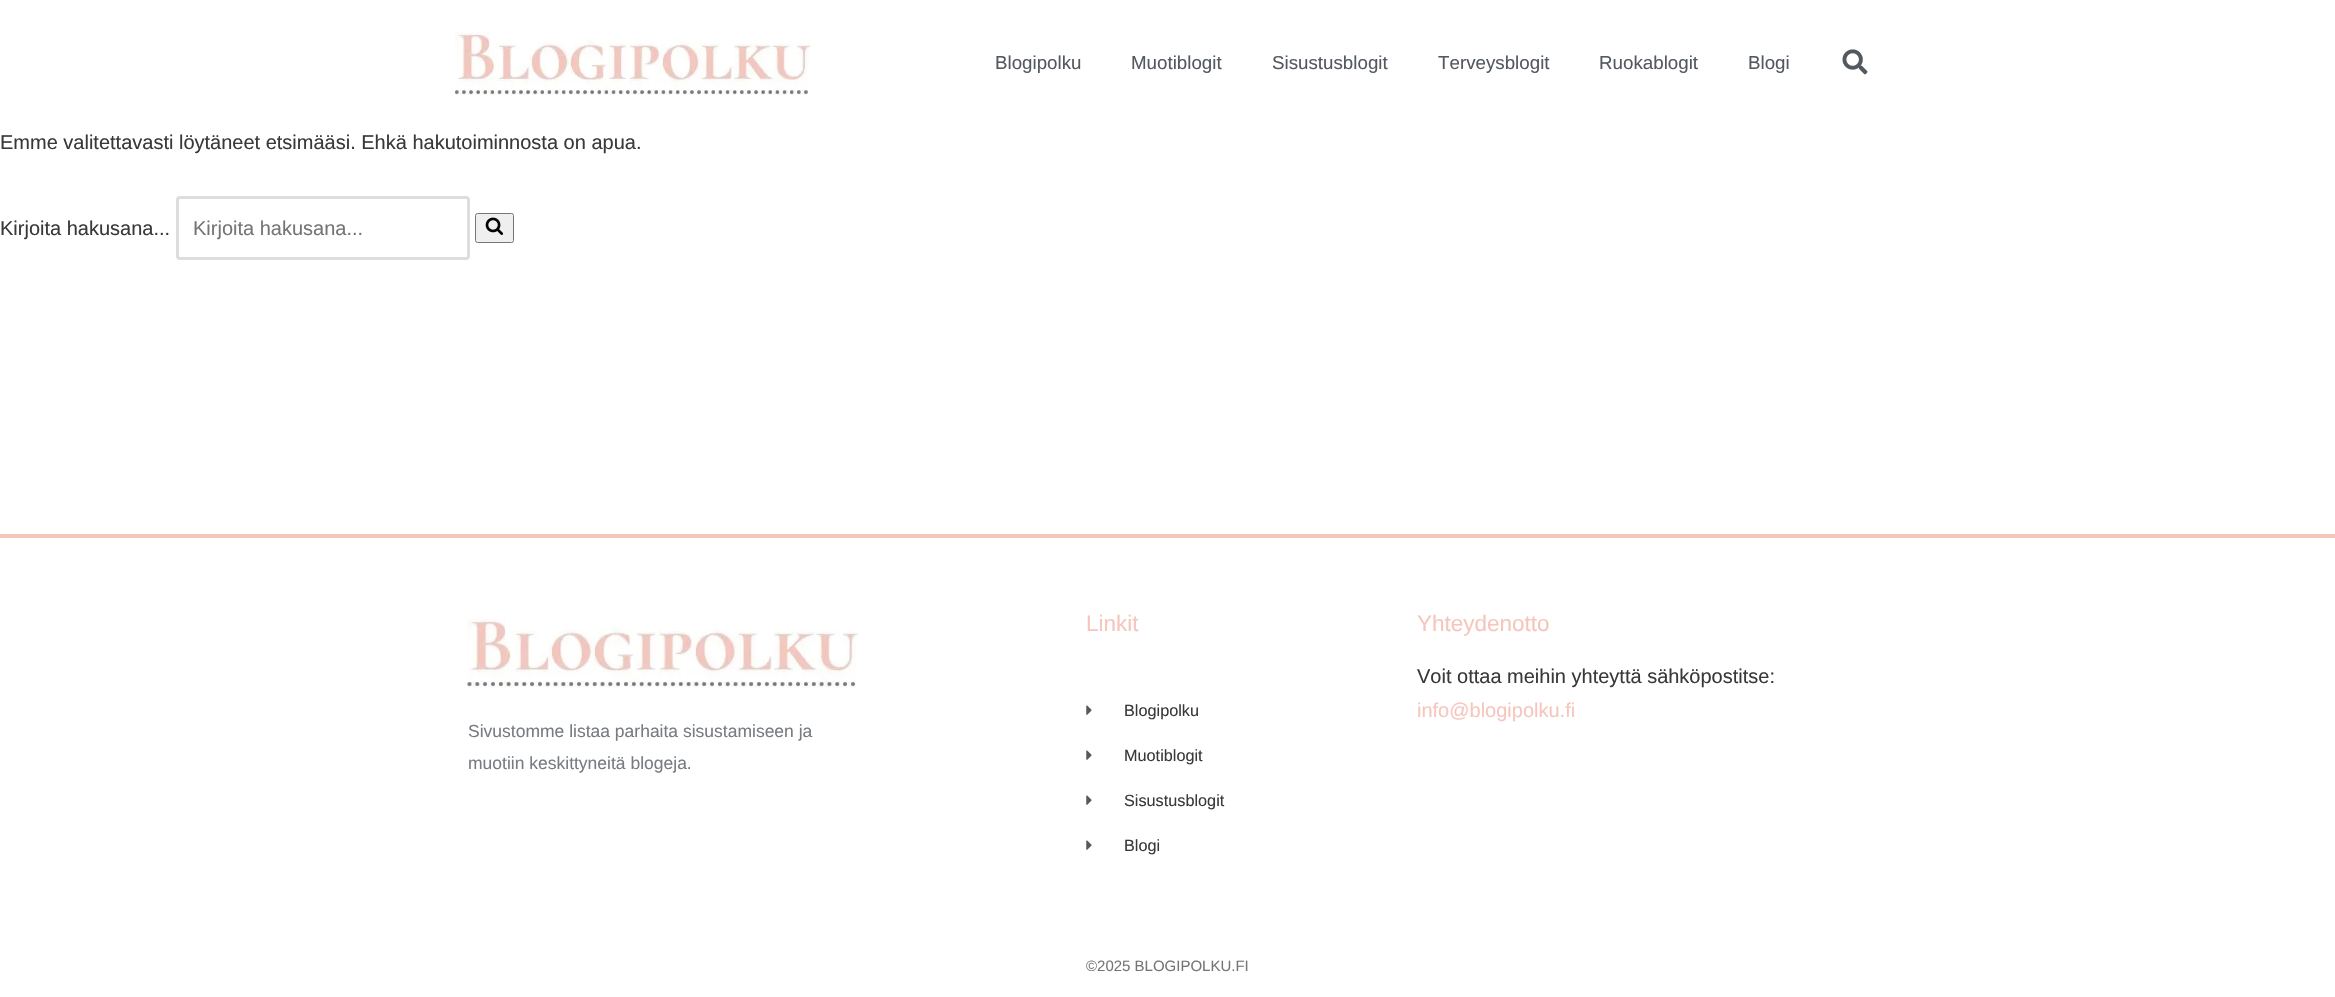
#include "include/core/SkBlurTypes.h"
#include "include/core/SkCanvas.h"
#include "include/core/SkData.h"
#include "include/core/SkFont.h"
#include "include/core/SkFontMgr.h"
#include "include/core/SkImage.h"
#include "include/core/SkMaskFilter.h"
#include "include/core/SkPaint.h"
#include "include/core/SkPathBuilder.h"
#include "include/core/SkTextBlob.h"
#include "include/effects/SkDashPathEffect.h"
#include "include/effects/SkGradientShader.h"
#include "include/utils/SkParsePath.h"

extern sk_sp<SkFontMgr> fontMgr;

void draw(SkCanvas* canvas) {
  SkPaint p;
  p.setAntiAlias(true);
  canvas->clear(SK_ColorWHITE);
  canvas->drawImageRect(SkImages::DeferredFromEncodedData(SkData::MakeFromFileName("images/1.png")), SkRect::MakeLTRB(455, 32, 811, 95), SkSamplingOptions());
  canvas->drawImageRect(SkImages::DeferredFromEncodedData(SkData::MakeFromFileName("images/2.png")), SkRect::MakeLTRB(1842, 49, 1868, 75), SkSamplingOptions());
  p.setStyle(SkPaint::kStroke_Style);
  p.setStrokeWidth(3);
  p.setColor(SkColorSetRGB(221, 221, 221));
  canvas->drawRoundRect(SkRect::MakeLTRB(177.5f, 197.5f, 468.5f, 258.5f), 2.5f, 2.5f, p);
  p.setStyle(SkPaint::kFill_Style);
  p.setColor(SkColorSetRGB(239, 239, 239));
  canvas->drawRoundRect(SkRect::MakeLTRB(475.5f, 213.5f, 513.5f, 242.5f), 2, 2, p);
  p.setStyle(SkPaint::kStroke_Style);
  p.setStrokeWidth(1);
  p.setColor(SkColorSetRGB(118, 118, 118));
  canvas->drawRoundRect(SkRect::MakeLTRB(475.5f, 213.5f, 513.5f, 242.5f), 2, 2, p);
  canvas->drawImageRect(SkImages::DeferredFromEncodedData(SkData::MakeFromFileName("images/3.png")), SkRect::MakeLTRB(485, 217, 504, 235), SkSamplingOptions());
  p.setStyle(SkPaint::kFill_Style);
  p.setColor(SkColorSetRGB(246, 198, 188));
  canvas->drawRect(SkRect::MakeLTRB(0, 534, 2335, 538), p);
  canvas->drawImageRect(SkImages::DeferredFromEncodedData(SkData::MakeFromFileName("images/4.png")), SkRect::MakeLTRB(1086, 705, 1092, 715), SkSamplingOptions());
  canvas->drawImageRect(SkImages::DeferredFromEncodedData(SkData::MakeFromFileName("images/4.png")), SkRect::MakeLTRB(1086, 750, 1092, 760), SkSamplingOptions());
  canvas->drawImageRect(SkImages::DeferredFromEncodedData(SkData::MakeFromFileName("images/4.png")), SkRect::MakeLTRB(1086, 795, 1092, 805), SkSamplingOptions());
  canvas->drawImageRect(SkImages::DeferredFromEncodedData(SkData::MakeFromFileName("images/4.png")), SkRect::MakeLTRB(1086, 840, 1092, 850), SkSamplingOptions());
  canvas->drawImageRect(SkImages::DeferredFromEncodedData(SkData::MakeFromFileName("images/5.png")), SkRect::MakeLTRB(467, 619, 859, 688), SkSamplingOptions());
  SkFont font1(fontMgr->matchFamilyStyle("Liberation Sans", SkFontStyle::Normal()), 18.75f);
  font1.setSubpixel(true);
  p.setColor(SkColorSetRGB(84, 89, 95));
  canvas->drawString("Blogipolku", 995, 69, font1, p);
  canvas->drawString("Muotiblogit", 1131, 69, font1, p);
  canvas->drawString("Sisustusblogit", 1272, 69, font1, p);
  canvas->drawString("Terveysblogit", 1438, 69, font1, p);
  canvas->drawString("Ruokablogit", 1599, 69, font1, p);
  canvas->drawString("Blogi", 1748, 69, font1, p);
  SkFont font2(fontMgr->matchFamilyStyle("Liberation Sans", SkFontStyle::Normal()), 20);
  font2.setSubpixel(true);
  p.setColor(SkColorSetRGB(57, 57, 57));
  canvas->drawString("Emme valitettavasti löytäneet etsimääsi. Ehkä hakutoiminnosta on apua.", 0, 149, font2, p);
  canvas->drawString("Kirjoita hakusana...", 0, 235, font2, p);
  p.setColor(SkColorSetRGB(117, 117, 117));
  canvas->drawString("Kirjoita hakusana...", 193, 235, font2, p);
  SkFont font3(fontMgr->matchFamilyStyle("Liberation Sans", SkFontStyle::Normal()), 22.5f);
  font3.setSubpixel(true);
  p.setColor(SkColorSetRGB(246, 198, 188));
  canvas->drawString("Linkit", 1086, 631, font3, p);
  SkFont font4(fontMgr->matchFamilyStyle("Liberation Sans", SkFontStyle::Normal()), 16.25f);
  font4.setSubpixel(true);
  p.setColor(SkColorSetRGB(57, 57, 57));
  canvas->drawString("Blogipolku", 1124, 716, font4, p);
  canvas->drawString("Muotiblogit", 1124, 761, font4, p);
  canvas->drawString("Sisustusblogit", 1124, 806, font4, p);
  canvas->drawString("Blogi", 1124, 851, font4, p);
  p.setColor(SkColorSetRGB(246, 198, 188));
  canvas->drawString("Yhteydenotto", 1417, 631, font3, p);
  p.setColor(SkColorSetRGB(57, 57, 57));
  canvas->drawString("Voit ottaa meihin yhteyttä sähköpostitse:", 1417, 683, font2, p);
  p.setColor(SkColorSetRGB(246, 198, 188));
  canvas->drawString("info@blogipolku.fi", 1417, 717, font2, p);
  SkFont font5(fontMgr->matchFamilyStyle("Liberation Sans", SkFontStyle::Normal()), 17.5f);
  font5.setSubpixel(true);
  p.setColor(SkColorSetRGB(120, 124, 129));
  canvas->drawString("Sivustomme listaa parhaita sisustamiseen ja", 468, 737, font5, p);
  canvas->drawString("muotiin keskittyneitä blogeja.", 468, 769, font5, p);
  SkFont font6(fontMgr->matchFamilyStyle("Liberation Sans", SkFontStyle::Normal()), 15);
  font6.setSubpixel(true);
  p.setColor(SkColorSetRGB(117, 117, 117));
  canvas->drawString("©2025 BLOGIPOLKU.FI", 1086, 971, font6, p);
}
